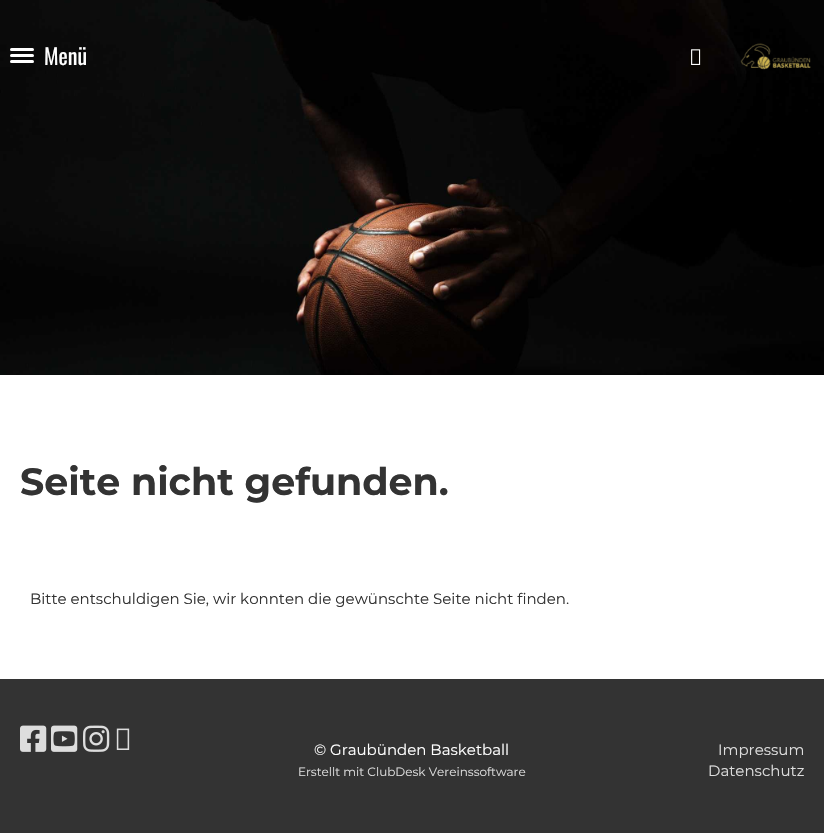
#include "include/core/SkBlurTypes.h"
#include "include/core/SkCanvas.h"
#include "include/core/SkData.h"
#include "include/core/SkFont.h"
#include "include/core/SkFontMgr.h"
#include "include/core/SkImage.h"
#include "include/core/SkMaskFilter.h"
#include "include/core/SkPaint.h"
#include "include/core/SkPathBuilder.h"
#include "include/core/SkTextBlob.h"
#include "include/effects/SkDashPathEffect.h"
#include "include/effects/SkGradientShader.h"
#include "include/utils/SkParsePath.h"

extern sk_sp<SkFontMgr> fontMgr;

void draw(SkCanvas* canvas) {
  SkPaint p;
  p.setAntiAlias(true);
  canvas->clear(SK_ColorWHITE);
  canvas->drawImageRect(SkImages::DeferredFromEncodedData(SkData::MakeFromFileName("images/3.png")), SkRect::MakeLTRB(0, 0, 824, 375), SkSamplingOptions());
  p.setColor(SK_ColorWHITE);
  canvas->drawRoundRect(SkRect::MakeLTRB(10, 48, 34, 51), 1.5f, 1.5f, p);
  canvas->drawRoundRect(SkRect::MakeLTRB(10, 54, 34, 57), 1.5f, 1.5f, p);
  canvas->drawRoundRect(SkRect::MakeLTRB(10, 60, 34, 63), 1.5f, 1.5f, p);
  canvas->drawImageRect(SkImages::DeferredFromEncodedData(SkData::MakeFromFileName("images/1.png")), SkRect::MakeLTRB(691, 49, 701, 65), SkSamplingOptions());
  canvas->drawImageRect(SkImages::DeferredFromEncodedData(SkData::MakeFromFileName("images/2.png")), SkRect::MakeLTRB(740, 43, 811, 70), SkSamplingOptions());
  p.setColor(SkColorSetRGB(51, 51, 51));
  canvas->drawRect(SkRect::MakeLTRB(0, 679, 824, 833), p);
  canvas->drawImageRect(SkImages::DeferredFromEncodedData(SkData::MakeFromFileName("images/4.png")), SkRect::MakeLTRB(20, 725, 47, 752), SkSamplingOptions());
  canvas->drawImageRect(SkImages::DeferredFromEncodedData(SkData::MakeFromFileName("images/5.png")), SkRect::MakeLTRB(51, 725, 78, 752), SkSamplingOptions());
  canvas->drawImageRect(SkImages::DeferredFromEncodedData(SkData::MakeFromFileName("images/6.png")), SkRect::MakeLTRB(83, 725, 110, 752), SkSamplingOptions());
  canvas->drawImageRect(SkImages::DeferredFromEncodedData(SkData::MakeFromFileName("images/7.png")), SkRect::MakeLTRB(116, 728, 130, 750), SkSamplingOptions());
  SkFont font1(fontMgr->matchFamilyStyle("Oswald", SkFontStyle::Normal()), 22);
  font1.setSubpixel(true);
  p.setColor(SK_ColorWHITE);
  canvas->drawString("Menü", 44, 65, font1, p);
  SkFont font2(fontMgr->matchFamilyStyle("Montserrat", SkFontStyle::Bold()), 38);
  font2.setSubpixel(true);
  p.setColor(SkColorSetRGB(51, 51, 51));
  canvas->drawString("Seite nicht gefunden.", 20, 495, font2, p);
  SkFont font3(fontMgr->matchFamilyStyle("Montserrat", SkFontStyle::Normal()), 15);
  font3.setSubpixel(true);
  canvas->drawString("Bitte entschuldigen Sie, wir konnten die gewünschte Seite nicht finden.", 30, 604, font3, p);
  p.setColor(SK_ColorWHITE);
  canvas->drawString("© Graubünden Basketball", 314, 755, font3, p);
  SkFont font4(fontMgr->matchFamilyStyle("Montserrat", SkFontStyle::Normal()), 12);
  font4.setSubpixel(true);
  p.setColor(SkColorSetRGB(221, 221, 221));
  canvas->drawString("Erstellt mit ClubDesk Vereinssoftware", 298, 776, font4, p);
  canvas->drawString("Impressum", 718, 755, font3, p);
  canvas->drawString("Datenschutz", 708, 776, font3, p);
}
